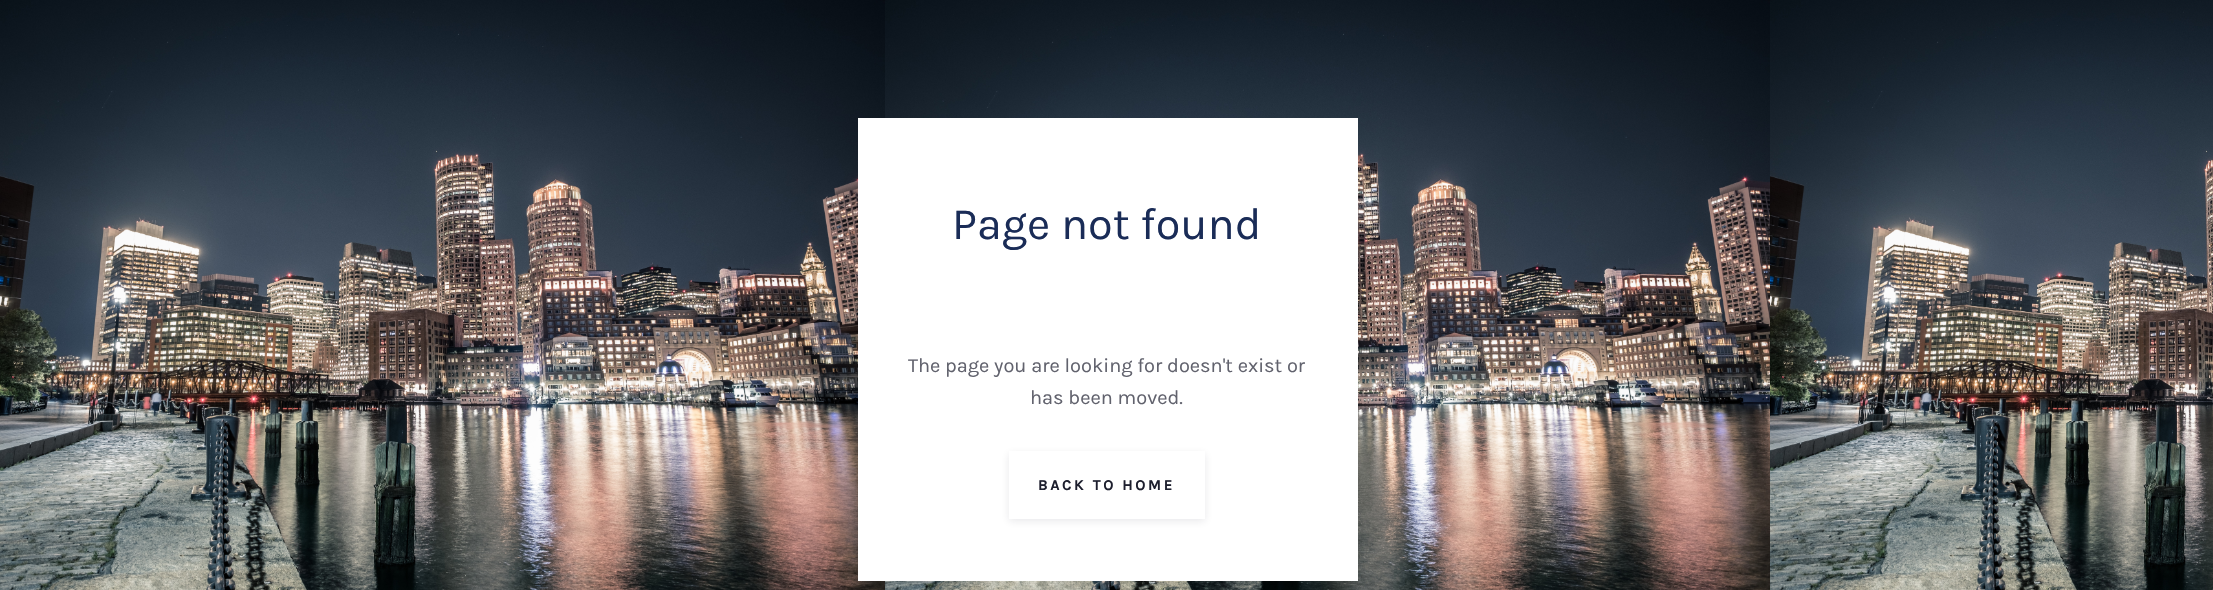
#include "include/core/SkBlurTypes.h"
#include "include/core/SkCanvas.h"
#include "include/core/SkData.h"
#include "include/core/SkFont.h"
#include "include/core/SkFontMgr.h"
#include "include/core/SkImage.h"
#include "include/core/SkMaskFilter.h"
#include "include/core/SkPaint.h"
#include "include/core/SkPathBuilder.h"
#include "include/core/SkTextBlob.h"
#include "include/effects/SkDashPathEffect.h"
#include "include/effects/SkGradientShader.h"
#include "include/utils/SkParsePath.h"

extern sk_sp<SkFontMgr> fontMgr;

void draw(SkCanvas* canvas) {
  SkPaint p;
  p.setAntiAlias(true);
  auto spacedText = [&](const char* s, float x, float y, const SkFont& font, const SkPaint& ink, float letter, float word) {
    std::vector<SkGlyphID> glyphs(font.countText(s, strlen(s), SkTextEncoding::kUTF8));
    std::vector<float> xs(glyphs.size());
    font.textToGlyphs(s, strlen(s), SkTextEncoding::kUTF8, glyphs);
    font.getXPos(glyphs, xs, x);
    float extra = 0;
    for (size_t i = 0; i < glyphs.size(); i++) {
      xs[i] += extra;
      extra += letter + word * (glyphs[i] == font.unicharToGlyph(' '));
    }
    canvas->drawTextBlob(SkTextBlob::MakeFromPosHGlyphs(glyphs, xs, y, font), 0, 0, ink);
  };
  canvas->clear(SK_ColorWHITE);
  canvas->drawImageRect(SkImages::DeferredFromEncodedData(SkData::MakeFromFileName("images/1.png")), SkRect::MakeLTRB(0, 0, 2213, 590), SkSamplingOptions());
  p.setColor(SK_ColorWHITE);
  canvas->drawRect(SkRect::MakeLTRB(858, 118, 1358, 581), p);
  p.setColor(SkColorSetARGB(26, 29, 31, 46));
  p.setMaskFilter(SkMaskFilter::MakeBlur(kNormal_SkBlurStyle, 4));
  canvas->drawRect(SkRect::MakeLTRB(1009, 454, 1205, 521), p);
  p.setMaskFilter(nullptr);
  p.setColor(SK_ColorWHITE);
  canvas->drawRect(SkRect::MakeLTRB(1009, 451, 1205, 519), p);
  SkFont font1(fontMgr->matchFamilyStyle("Karla", SkFontStyle::Normal()), 45);
  font1.setSubpixel(true);
  p.setColor(SkColorSetRGB(26, 44, 87));
  canvas->drawString("Page not found", 952, 239, font1, p);
  SkFont font2(fontMgr->matchFamilyStyle("Karla", SkFontStyle::Normal()), 20);
  font2.setSubpixel(true);
  p.setColor(SkColorSetRGB(97, 98, 109));
  canvas->drawString("The page you are looking for doesn't exist or", 908, 372, font2, p);
  canvas->drawString("has been moved.", 1030, 404, font2, p);
  SkFont font3(fontMgr->matchFamilyStyle("Karla", SkFontStyle::Bold()), 15);
  font3.setSubpixel(true);
  p.setColor(SkColorSetRGB(29, 31, 46));
  spacedText("BACK TO HOME", 1038, 490, font3, p, 2.5f, 0);
}
